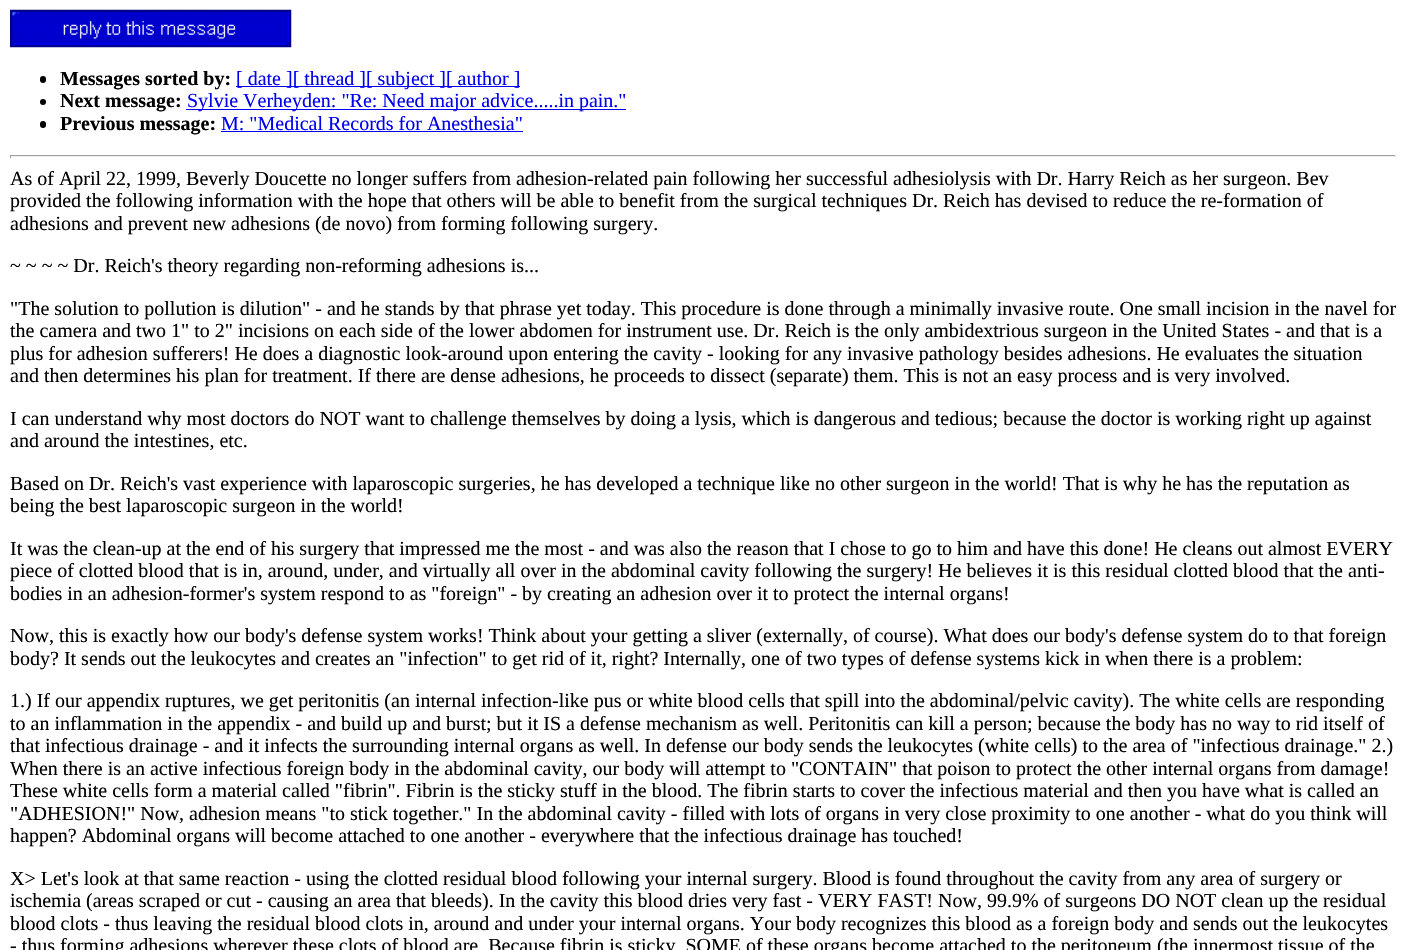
#include "include/core/SkBlurTypes.h"
#include "include/core/SkCanvas.h"
#include "include/core/SkData.h"
#include "include/core/SkFont.h"
#include "include/core/SkFontMgr.h"
#include "include/core/SkImage.h"
#include "include/core/SkMaskFilter.h"
#include "include/core/SkPaint.h"
#include "include/core/SkPathBuilder.h"
#include "include/core/SkTextBlob.h"
#include "include/effects/SkDashPathEffect.h"
#include "include/effects/SkGradientShader.h"
#include "include/utils/SkParsePath.h"

extern sk_sp<SkFontMgr> fontMgr;

void draw(SkCanvas* canvas) {
  SkPaint p;
  p.setAntiAlias(true);
  canvas->clear(SK_ColorWHITE);
  canvas->drawImageRect(SkImages::DeferredFromEncodedData(SkData::MakeFromFileName("images/1.png")), SkRect::MakeLTRB(10, 9, 292, 48), SkSamplingOptions());
  p.setColor(SK_ColorBLACK);
  canvas->drawRoundRect(SkRect::MakeLTRB(40, 76, 46, 83), 3, 3, p);
  p.setColor(SkColorSetRGB(0, 0, 238));
  canvas->drawRect(SkRect::MakeLTRB(236, 86, 520, 87), p);
  p.setColor(SK_ColorBLACK);
  canvas->drawCircle(43, 102, 3, p);
  p.setColor(SkColorSetRGB(0, 0, 238));
  canvas->drawRect(SkRect::MakeLTRB(186, 109, 626, 110), p);
  p.setColor(SK_ColorBLACK);
  canvas->drawRoundRect(SkRect::MakeLTRB(40, 121, 46, 128), 3, 3, p);
  p.setColor(SkColorSetRGB(0, 0, 238));
  canvas->drawRect(SkRect::MakeLTRB(221, 131, 523, 132), p);
  p.setColor(SkColorSetRGB(159, 159, 159));
  canvas->drawRect(SkRect::MakeLTRB(10, 155, 1396, 156), p);
  p.setColor(SkColorSetRGB(238, 238, 238));
  canvas->drawRect(SkRect::MakeLTRB(1395, 155, 1396, 158), p);
  canvas->drawRect(SkRect::MakeLTRB(10, 156, 1396, 157), p);
  p.setColor(SkColorSetRGB(159, 159, 159));
  canvas->drawRect(SkRect::MakeLTRB(10, 155, 11, 158), p);
  SkFont font1(fontMgr->matchFamilyStyle("Liberation Serif", SkFontStyle::Bold()), 20);
  font1.setSubpixel(true);
  p.setColor(SK_ColorBLACK);
  canvas->drawString("Messages sorted by:", 60, 85, font1, p);
  SkFont font2(fontMgr->matchFamilyStyle("Liberation Serif", SkFontStyle::Normal()), 20);
  font2.setSubpixel(true);
  p.setColor(SkColorSetRGB(0, 0, 238));
  canvas->drawString("[ date ][ thread ][ subject ][ author ]", 236, 85, font2, p);
  p.setColor(SK_ColorBLACK);
  canvas->drawString("Next message:", 60, 107, font1, p);
  p.setColor(SkColorSetRGB(0, 0, 238));
  canvas->drawString("Sylvie Verheyden: \"Re: Need major advice.....in pain.\"", 187, 107, font2, p);
  p.setColor(SK_ColorBLACK);
  canvas->drawString("Previous message:", 60, 130, font1, p);
  p.setColor(SkColorSetRGB(0, 0, 238));
  canvas->drawString("M: \"Medical Records for Anesthesia\"", 221, 130, font2, p);
  p.setColor(SK_ColorBLACK);
  canvas->drawString("As of April 22, 1999, Beverly Doucette no longer suffers from adhesion-related pain following her successful adhesiolysis with Dr. Harry Reich as her surgeon. Bev", 10, 185, font2, p);
  canvas->drawString("provided the following information with the hope that others will be able to benefit from the surgical techniques Dr. Reich has devised to reduce the re-formation of", 10, 207, font2, p);
  canvas->drawString("adhesions and prevent new adhesions (de novo) from forming following surgery.", 10, 230, font2, p);
  canvas->drawString("~ ~ ~ ~ Dr. Reich's theory regarding non-reforming adhesions is...", 10, 272, font2, p);
  canvas->drawString("\"The solution to pollution is dilution\" - and he stands by that phrase yet today. This procedure is done through a minimally invasive route. One small incision in the navel for", 10, 315, font2, p);
  canvas->drawString("the camera and two 1\" to 2\" incisions on each side of the lower abdomen for instrument use. Dr. Reich is the only ambidextrious surgeon in the United States - and that is a", 10, 337, font2, p);
  canvas->drawString("plus for adhesion sufferers! He does a diagnostic look-around upon entering the cavity - looking for any invasive pathology besides adhesions. He evaluates the situation", 10, 360, font2, p);
  canvas->drawString("and then determines his plan for treatment. If there are dense adhesions, he proceeds to dissect (separate) them. This is not an easy process and is very involved.", 10, 382, font2, p);
  canvas->drawString("I can understand why most doctors do NOT want to challenge themselves by doing a lysis, which is dangerous and tedious; because the doctor is working right up against", 10, 425, font2, p);
  canvas->drawString("and around the intestines, etc.", 10, 447, font2, p);
  canvas->drawString("Based on Dr. Reich's vast experience with laparoscopic surgeries, he has developed a technique like no other surgeon in the world! That is why he has the reputation as", 10, 490, font2, p);
  canvas->drawString("being the best laparoscopic surgeon in the world!", 10, 512, font2, p);
  canvas->drawString("It was the clean-up at the end of his surgery that impressed me the most - and was also the reason that I chose to go to him and have this done! He cleans out almost EVERY", 10, 555, font2, p);
  canvas->drawString("piece of clotted blood that is in, around, under, and virtually all over in the abdominal cavity following the surgery! He believes it is this residual clotted blood that the anti-", 10, 577, font2, p);
  canvas->drawString("bodies in an adhesion-former's system respond to as \"foreign\" - by creating an adhesion over it to protect the internal organs!", 10, 600, font2, p);
  canvas->drawString("Now, this is exactly how our body's defense system works! Think about your getting a sliver (externally, of course). What does our body's defense system do to that foreign", 10, 642, font2, p);
  canvas->drawString("body? It sends out the leukocytes and creates an \"infection\" to get rid of it, right? Internally, one of two types of defense systems kick in when there is a problem:", 10, 665, font2, p);
  canvas->drawString("1.) If our appendix ruptures, we get peritonitis (an internal infection-like pus or white blood cells that spill into the abdominal/pelvic cavity). The white cells are responding", 10, 707, font2, p);
  canvas->drawString("to an inflammation in the appendix - and build up and burst; but it IS a defense mechanism as well. Peritonitis can kill a person; because the body has no way to rid itself of", 10, 730, font2, p);
  canvas->drawString("that infectious drainage - and it infects the surrounding internal organs as well. In defense our body sends the leukocytes (white cells) to the area of \"infectious drainage.\" 2.)", 10, 752, font2, p);
  canvas->drawString("When there is an active infectious foreign body in the abdominal cavity, our body will attempt to \"CONTAIN\" that poison to protect the other internal organs from damage!", 10, 775, font2, p);
  canvas->drawString("These white cells form a material called \"fibrin\". Fibrin is the sticky stuff in the blood. The fibrin starts to cover the infectious material and then you have what is called an", 10, 797, font2, p);
  canvas->drawString("\"ADHESION!\" Now, adhesion means \"to stick together.\" In the abdominal cavity - filled with lots of organs in very close proximity to one another - what do you think will", 10, 820, font2, p);
  canvas->drawString("happen? Abdominal organs will become attached to one another - everywhere that the infectious drainage has touched!", 10, 842, font2, p);
  canvas->drawString("X> Let's look at that same reaction - using the clotted residual blood following your internal surgery. Blood is found throughout the cavity from any area of surgery or", 10, 885, font2, p);
  canvas->drawString("ischemia (areas scraped or cut - causing an area that bleeds). In the cavity this blood dries very fast - VERY FAST! Now, 99.9% of surgeons DO NOT clean up the residual", 10, 907, font2, p);
  canvas->drawString("blood clots - thus leaving the residual blood clots in, around and under your internal organs. Your body recognizes this blood as a foreign body and sends out the leukocytes", 10, 930, font2, p);
  canvas->drawString("- thus forming adhesions wherever these clots of blood are. Because fibrin is sticky, SOME of these organs become attached to the peritoneum (the innermost tissue of the", 10, 952, font2, p);
}
